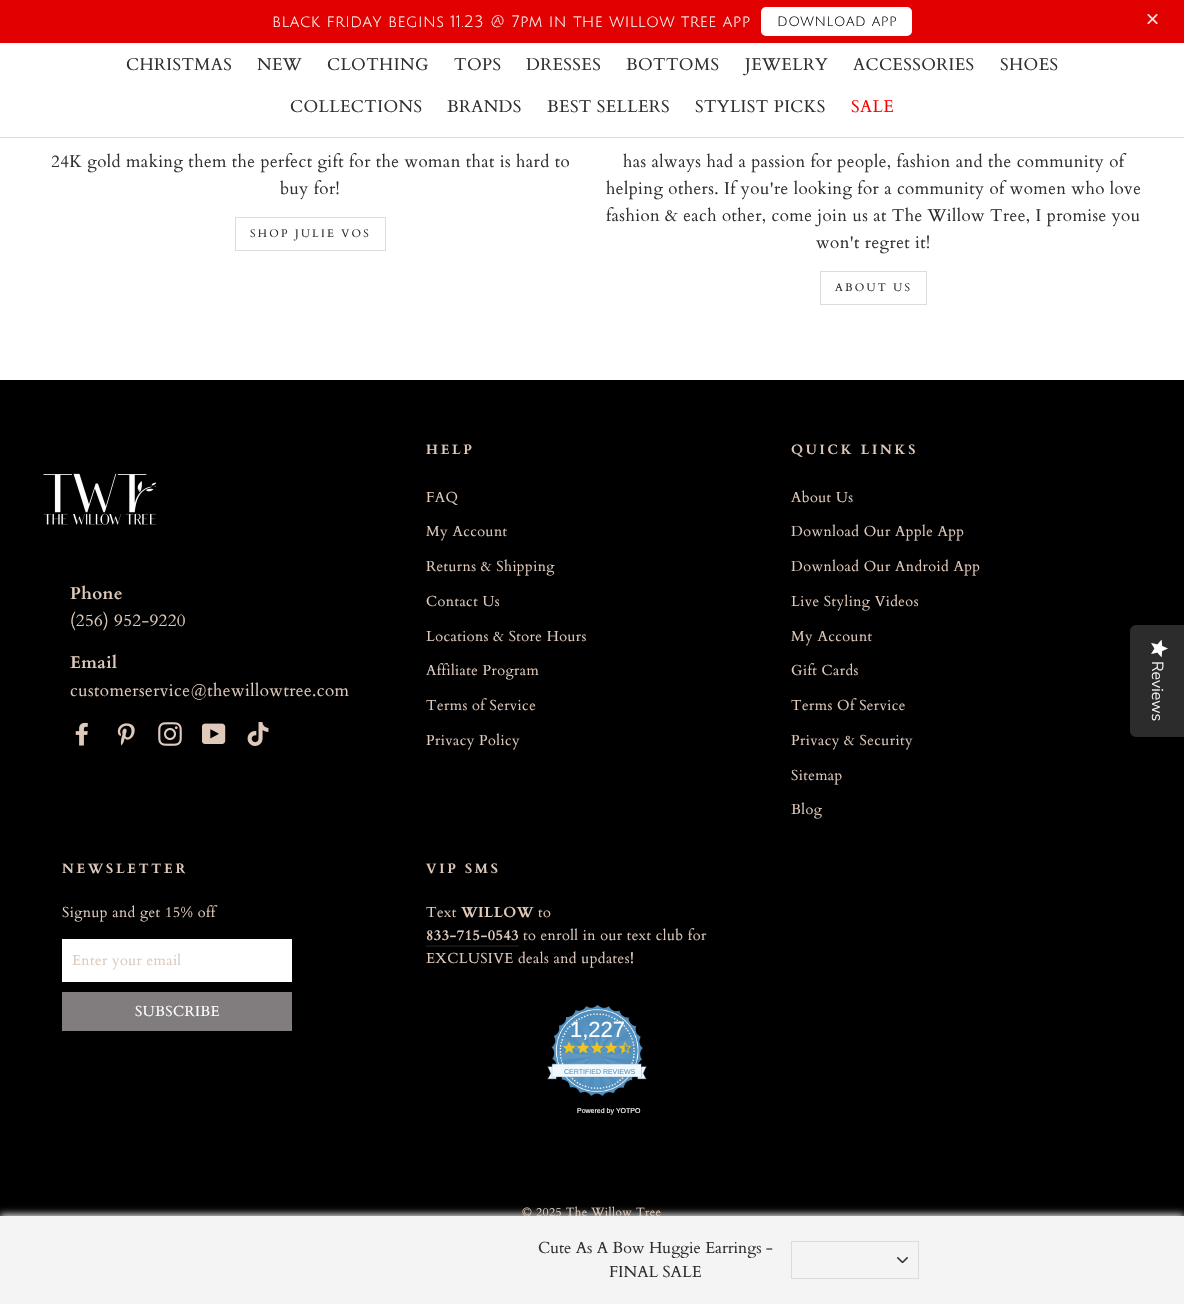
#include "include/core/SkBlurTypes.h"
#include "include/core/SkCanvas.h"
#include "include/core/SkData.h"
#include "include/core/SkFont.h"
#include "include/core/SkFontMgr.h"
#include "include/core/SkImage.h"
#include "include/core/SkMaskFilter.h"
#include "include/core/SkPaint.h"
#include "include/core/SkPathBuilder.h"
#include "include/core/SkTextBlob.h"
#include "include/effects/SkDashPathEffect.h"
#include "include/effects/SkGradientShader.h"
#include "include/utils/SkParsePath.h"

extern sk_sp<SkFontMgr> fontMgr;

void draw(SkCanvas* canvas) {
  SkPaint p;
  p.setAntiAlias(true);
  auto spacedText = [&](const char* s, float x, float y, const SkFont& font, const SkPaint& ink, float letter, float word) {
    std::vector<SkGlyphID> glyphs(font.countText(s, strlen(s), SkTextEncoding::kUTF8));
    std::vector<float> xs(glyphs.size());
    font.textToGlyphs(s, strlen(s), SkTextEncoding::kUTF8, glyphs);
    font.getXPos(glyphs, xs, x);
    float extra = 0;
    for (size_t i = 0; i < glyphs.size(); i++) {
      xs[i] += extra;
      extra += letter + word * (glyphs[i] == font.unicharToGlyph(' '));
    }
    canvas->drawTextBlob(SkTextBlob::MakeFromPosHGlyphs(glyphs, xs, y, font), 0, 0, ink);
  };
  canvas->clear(SK_ColorWHITE);
  p.setColor(SkColorSetRGB(225, 1, 1));
  canvas->drawRect(SkRect::MakeLTRB(0, 0, 1184, 43), p);
  p.setColor(SK_ColorWHITE);
  canvas->drawRoundRect(SkRect::MakeLTRB(762, 8, 911, 35), 4, 4, p);
  p.setStyle(SkPaint::kStroke_Style);
  p.setStrokeWidth(2);
  canvas->drawRoundRect(SkRect::MakeLTRB(762, 8, 911, 35), 4, 4, p);
  canvas->drawImageRect(SkImages::DeferredFromEncodedData(SkData::MakeFromFileName("images/1.png")), SkRect::MakeLTRB(1147, 14, 1158, 25), SkSamplingOptions());
  p.setStyle(SkPaint::kFill_Style);
  p.setColor(SkColorSetRGB(220, 220, 220));
  canvas->drawRect(SkRect::MakeLTRB(0, 137, 1184, 138), p);
  p.setStyle(SkPaint::kStroke_Style);
  p.setStrokeWidth(1);
  canvas->drawRect(SkRect::MakeLTRB(235.5f, 217.5f, 385.5f, 250.5f), p);
  canvas->drawRect(SkRect::MakeLTRB(820.5f, 271.5f, 926.5f, 304.5f), p);
  p.setStyle(SkPaint::kFill_Style);
  p.setColor(SK_ColorBLACK);
  canvas->drawRect(SkRect::MakeLTRB(0, 380, 1184, 1216), p);
  canvas->drawImageRect(SkImages::DeferredFromEncodedData(SkData::MakeFromFileName("images/2.png")), SkRect::MakeLTRB(43, 473, 157, 525), SkSamplingOptions());
  canvas->drawImageRect(SkImages::DeferredFromEncodedData(SkData::MakeFromFileName("images/3.png")), SkRect::MakeLTRB(75, 722, 88, 746), SkSamplingOptions());
  canvas->drawImageRect(SkImages::DeferredFromEncodedData(SkData::MakeFromFileName("images/4.png")), SkRect::MakeLTRB(117, 723, 135, 746), SkSamplingOptions());
  canvas->drawImageRect(SkImages::DeferredFromEncodedData(SkData::MakeFromFileName("images/5.png")), SkRect::MakeLTRB(158, 722, 182, 746), SkSamplingOptions());
  canvas->drawImageRect(SkImages::DeferredFromEncodedData(SkData::MakeFromFileName("images/6.png")), SkRect::MakeLTRB(202, 723, 226, 744), SkSamplingOptions());
  canvas->drawImageRect(SkImages::DeferredFromEncodedData(SkData::MakeFromFileName("images/7.png")), SkRect::MakeLTRB(247, 722, 269, 746), SkSamplingOptions());
  p.setColor(SK_ColorWHITE);
  canvas->drawRect(SkRect::MakeLTRB(62, 939, 292, 982), p);
  p.setColor(SkColorSetRGB(129, 125, 126));
  canvas->drawRect(SkRect::MakeLTRB(62, 992, 292, 1031), p);
  p.setColor(SkColorSetRGB(22, 20, 19));
  canvas->drawRect(SkRect::MakeLTRB(426, 945, 519, 947), p);
  canvas->drawImageRect(SkImages::DeferredFromEncodedData(SkData::MakeFromFileName("images/8.png")), SkRect::MakeLTRB(547, 1005, 647, 1096), SkSamplingOptions());
  canvas->drawImageRect(SkImages::DeferredFromEncodedData(SkData::MakeFromFileName("images/9.png")), SkRect::MakeLTRB(562, 1041, 576, 1054), SkSamplingOptions());
  canvas->drawImageRect(SkImages::DeferredFromEncodedData(SkData::MakeFromFileName("images/10.png")), SkRect::MakeLTRB(576, 1041, 590, 1054), SkSamplingOptions());
  canvas->drawImageRect(SkImages::DeferredFromEncodedData(SkData::MakeFromFileName("images/11.png")), SkRect::MakeLTRB(590, 1041, 604, 1054), SkSamplingOptions());
  canvas->drawImageRect(SkImages::DeferredFromEncodedData(SkData::MakeFromFileName("images/12.png")), SkRect::MakeLTRB(604, 1041, 618, 1054), SkSamplingOptions());
  canvas->drawImageRect(SkImages::DeferredFromEncodedData(SkData::MakeFromFileName("images/13.png")), SkRect::MakeLTRB(618, 1041, 632, 1054), SkSamplingOptions());
  p.setColor(SkColorSetRGB(220, 220, 220));
  p.setMaskFilter(SkMaskFilter::MakeBlur(kNormal_SkBlurStyle, 3.5f));
  canvas->drawRect(SkRect::MakeLTRB(0, 1214, 1184, 1302), p);
  p.setMaskFilter(nullptr);
  p.setColor(SkColorSetRGB(44, 44, 44));
  canvas->drawPath(SkPathBuilder().moveTo(1184, 625).lineTo(1184, 737).lineTo(1136, 737).cubicTo(1133, 737, 1130, 734, 1130, 731).lineTo(1130, 631).cubicTo(1130, 628, 1133, 625, 1136, 625).close().detach(), p);
  canvas->drawImageRect(SkImages::DeferredFromEncodedData(SkData::MakeFromFileName("images/15.png")), SkRect::MakeLTRB(1151, 639, 1168, 658), SkSamplingOptions());
  SkFont font1(fontMgr->matchFamilyStyle("Julius Sans One", SkFontStyle::Normal()), 16);
  font1.setSubpixel(true);
  p.setColor(SK_ColorWHITE);
  spacedText("black friday begins 11.23 @ 7pm in the willow tree app", 272, 27, font1, p, 0.42f, 0);
  SkFont font2(fontMgr->matchFamilyStyle("Julius Sans One", SkFontStyle::Normal()), 14.5f);
  font2.setSubpixel(true);
  p.setColor(SK_ColorBLACK);
  spacedText("download app", 777, 26, font2, p, 0.42f, 0);
  SkFont font3(fontMgr->matchFamilyStyle("Cardo", SkFontStyle::Normal()), 17);
  font3.setSubpixel(true);
  p.setColor(SkColorSetRGB(48, 48, 47));
  spacedText("CHRISTMAS", 126, 70, font3, p, 0.42f, 0);
  spacedText("NEW", 257, 70, font3, p, 0.42f, 0);
  spacedText("CLOTHING", 327, 70, font3, p, 0.42f, 0);
  spacedText("TOPS", 454, 70, font3, p, 0.42f, 0);
  spacedText("DRESSES", 526, 70, font3, p, 0.42f, 0);
  spacedText("BOTTOMS", 626, 70, font3, p, 0.42f, 0);
  spacedText("JEWELRY", 745, 70, font3, p, 0.42f, 0);
  spacedText("ACCESSORIES", 853, 70, font3, p, 0.42f, 0);
  spacedText("SHOES", 1000, 70, font3, p, 0.42f, 0);
  spacedText("COLLECTIONS", 290, 112, font3, p, 0.42f, 0);
  spacedText("BRANDS", 447, 112, font3, p, 0.42f, 0);
  spacedText("BEST SELLERS", 547, 112, font3, p, 0.42f, 0);
  spacedText("STYLIST PICKS", 695, 112, font3, p, 0.42f, 0);
  p.setColor(SkColorSetRGB(255, 0, 0));
  spacedText("SALE", 851, 112, font3, p, 0.42f, 0);
  p.setColor(SkColorSetRGB(48, 48, 47));
  spacedText("24K gold making them the perfect gift for the woman that is hard to", 51, 167, font3, p, 0.42f, 0);
  spacedText("buy for!", 280, 194, font3, p, 0.42f, 0);
  SkFont font4(fontMgr->matchFamilyStyle("Cardo", SkFontStyle::Normal()), 11);
  font4.setSubpixel(true);
  spacedText("SHOP JULIE VOS", 250, 237, font4, p, 2.25f, 0);
  spacedText("has always had a passion for people, fashion and the community of", 623, 167, font3, p, 0.42f, 0);
  spacedText("helping others. If you're looking for a community of women who love", 606, 194, font3, p, 0.42f, 0);
  spacedText("fashion & each other, come join us at The Willow Tree, I promise you", 606, 221, font3, p, 0.42f, 0);
  spacedText("won't regret it!", 816, 248, font3, p, 0.42f, 0);
  spacedText("ABOUT US", 835, 291, font4, p, 2.25f, 0);
  SkFont font5(fontMgr->matchFamilyStyle("Cardo", SkFontStyle::Bold()), 17);
  font5.setSubpixel(true);
  p.setColor(SkColorSetRGB(222, 201, 187));
  spacedText("Phone", 70, 599, font5, p, 0.42f, 0);
  spacedText("(256) 952-9220", 70, 626, font3, p, 0.42f, 0);
  spacedText("Email", 70, 668, font5, p, 0.42f, 0);
  spacedText("customerservice@thewillowtree.com", 70, 696, font3, p, 0.42f, 0);
  SkFont font6(fontMgr->matchFamilyStyle("Cardo", SkFontStyle::Bold()), 13.5f);
  font6.setSubpixel(true);
  spacedText("HELP", 426, 454, font6, p, 2.75f, 0);
  SkFont font7(fontMgr->matchFamilyStyle("Cardo", SkFontStyle::Normal()), 14.5f);
  font7.setSubpixel(true);
  spacedText("FAQ", 426, 502, font7, p, 0.42f, 0);
  spacedText("My Account", 426, 536, font7, p, 0.42f, 0);
  spacedText("Returns & Shipping", 426, 571, font7, p, 0.42f, 0);
  spacedText("Contact Us", 426, 606, font7, p, 0.42f, 0);
  spacedText("Locations & Store Hours", 426, 641, font7, p, 0.42f, 0);
  spacedText("Affiliate Program", 426, 675, font7, p, 0.42f, 0);
  spacedText("Terms of Service", 426, 710, font7, p, 0.42f, 0);
  spacedText("Privacy Policy", 426, 745, font7, p, 0.42f, 0);
  spacedText("QUICK LINKS", 791, 454, font6, p, 2.75f, 0);
  spacedText("About Us", 791, 502, font7, p, 0.42f, 0);
  spacedText("Download Our Apple App", 791, 536, font7, p, 0.42f, 0);
  spacedText("Download Our Android App", 791, 571, font7, p, 0.42f, 0);
  spacedText("Live Styling Videos", 791, 606, font7, p, 0.42f, 0);
  spacedText("My Account", 791, 641, font7, p, 0.42f, 0);
  spacedText("Gift Cards", 791, 675, font7, p, 0.42f, 0);
  spacedText("Terms Of Service", 791, 710, font7, p, 0.42f, 0);
  spacedText("Privacy & Security", 791, 745, font7, p, 0.42f, 0);
  spacedText("Sitemap", 791, 780, font7, p, 0.42f, 0);
  spacedText("Blog", 791, 814, font7, p, 0.42f, 0);
  spacedText("NEWSLETTER", 62, 873, font6, p, 2.75f, 0);
  spacedText("Signup and get 15% off", 62, 917, font7, p, 0.42f, 0);
  spacedText("Enter your email", 72, 965, font7, p, 0.4f, 0);
  p.setColor(SK_ColorWHITE);
  spacedText("SUBSCRIBE", 135, 1016, font7, p, 0.42f, 0);
  p.setColor(SkColorSetRGB(222, 201, 187));
  spacedText("VIP SMS", 426, 873, font6, p, 2.75f, 0);
  spacedText("Text", 426, 917, font7, p, 0.42f, 0);
  SkFont font8(fontMgr->matchFamilyStyle("Cardo", SkFontStyle::Bold()), 14.5f);
  font8.setSubpixel(true);
  spacedText("WILLOW", 461, 917, font8, p, 0.42f, 0);
  spacedText("to", 538, 917, font7, p, 0.42f, 0);
  spacedText("833-715-0543", 426, 940, font8, p, 0.42f, 0);
  spacedText("to enroll in our text club for", 523, 940, font7, p, 0.42f, 0);
  spacedText("EXCLUSIVE deals and updates", 426, 963, font7, p, 0.42f, 0);
  spacedText("!", 630, 963, font8, p, 0.42f, 0);
  SkFont font9(fontMgr->matchFamilyStyle("Liberation Sans", SkFontStyle::Normal()), 22);
  font9.setSubpixel(true);
  p.setColor(SK_ColorWHITE);
  canvas->drawString("1,227", 570, 1037, font9, p);
  SkFont font10(fontMgr->matchFamilyStyle("Liberation Sans", SkFontStyle::Normal()), 7);
  font10.setSubpixel(true);
  p.setColor(SkColorSetRGB(89, 151, 193));
  canvas->drawString("CERTIFIED REVIEWS", 564, 1074, font10, p);
  p.setColor(SK_ColorWHITE);
  canvas->drawString("Powered by YOTPO", 577, 1113, font10, p);
  SkFont font11(fontMgr->matchFamilyStyle("Cardo", SkFontStyle::Normal()), 11.9f);
  font11.setSubpixel(true);
  p.setColor(SkColorSetRGB(222, 201, 187));
  spacedText("© 2025 The Willow Tree", 522, 1216, font11, p, 0.42f, 0);
  p.setColor(SkColorSetRGB(244, 244, 244));
  canvas->drawRect(SkRect::MakeLTRB(0, 1216, 1184, 1304), p);
  SkFont font12(fontMgr->matchFamilyStyle("Cardo", SkFontStyle::Normal()), 16);
  font12.setSubpixel(true);
  p.setColor(SkColorSetRGB(48, 48, 47));
  canvas->drawString("Cute As A Bow Huggie Earrings -", 538, 1253, font12, p);
  canvas->drawString("FINAL SALE", 609, 1277, font12, p);
  canvas->drawImageRect(SkImages::DeferredFromEncodedData(SkData::MakeFromFileName("images/14.png")), SkRect::MakeLTRB(897, 1257, 908, 1263), SkSamplingOptions());
  p.setStyle(SkPaint::kStroke_Style);
  p.setColor(SkColorSetRGB(220, 220, 220));
  canvas->drawRect(SkRect::MakeLTRB(791.5f, 1241.5f, 918.5f, 1278.5f), p);
  SkFont font13(fontMgr->matchFamilyStyle("Nunito Sans", SkFontStyle(300, SkFontStyle::kNormal_Width, SkFontStyle::kUpright_Slant)), 16);
  font13.setSubpixel(true);
  p.setStyle(SkPaint::kFill_Style);
  p.setColor(SK_ColorWHITE);
  canvas->save();
  canvas->rotate(90, 1152, 661);
  canvas->drawString("Reviews", 1152, 661, font13, p);
  canvas->restore();
}
